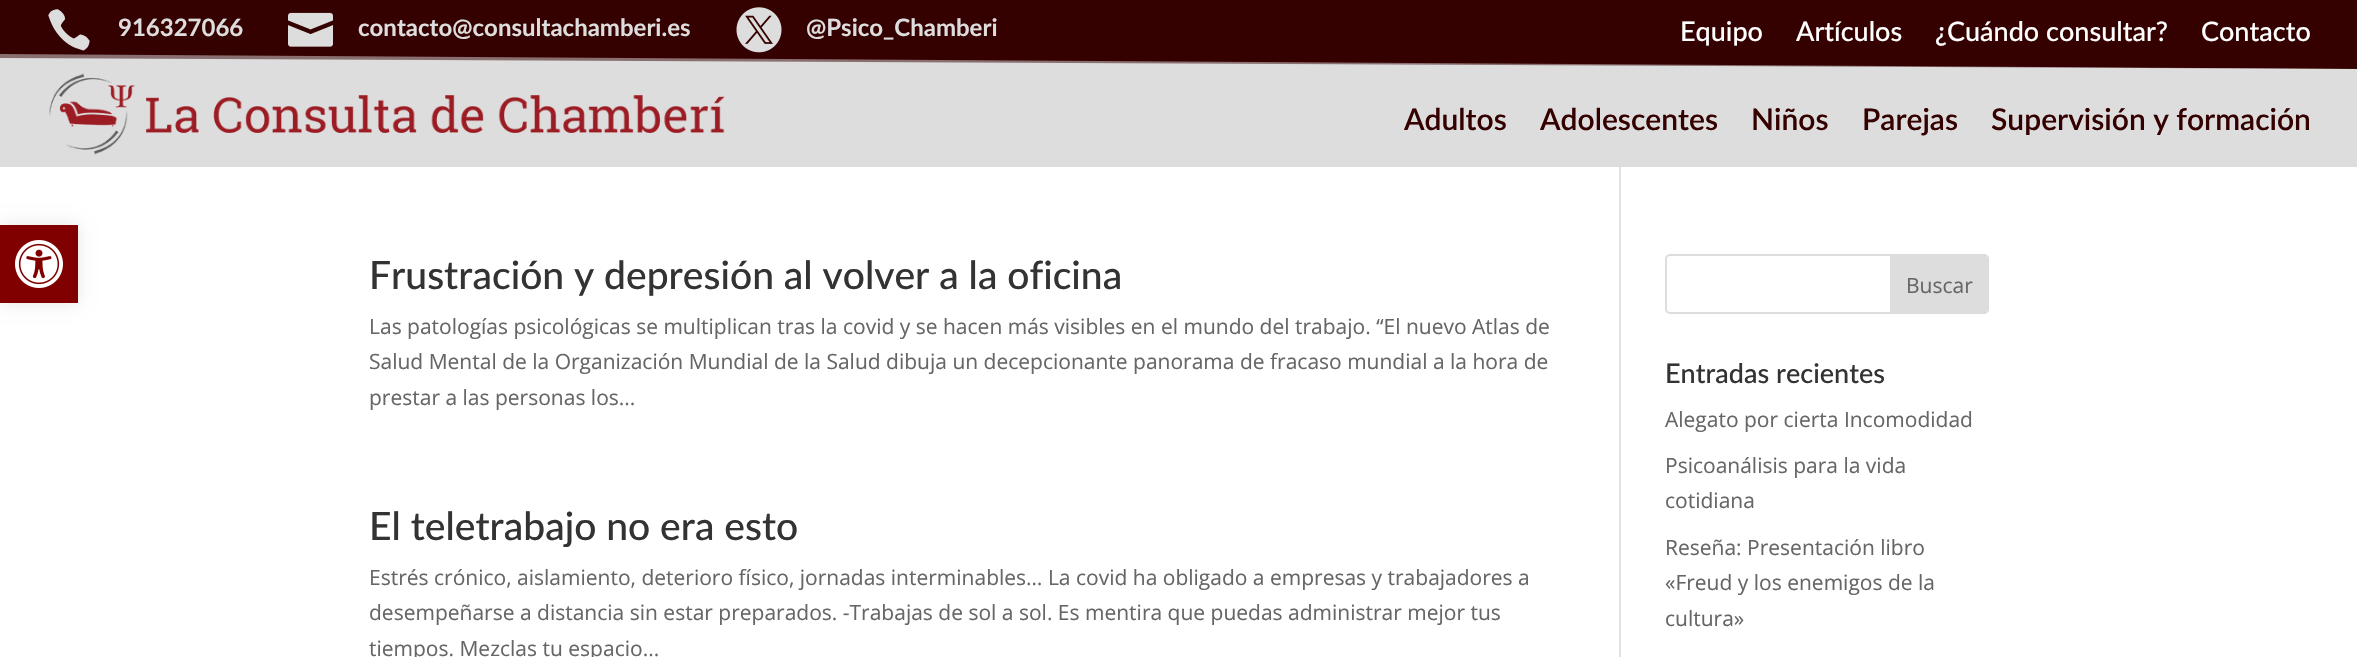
#include "include/core/SkBlurTypes.h"
#include "include/core/SkCanvas.h"
#include "include/core/SkData.h"
#include "include/core/SkFont.h"
#include "include/core/SkFontMgr.h"
#include "include/core/SkImage.h"
#include "include/core/SkMaskFilter.h"
#include "include/core/SkPaint.h"
#include "include/core/SkPathBuilder.h"
#include "include/core/SkTextBlob.h"
#include "include/effects/SkDashPathEffect.h"
#include "include/effects/SkGradientShader.h"
#include "include/utils/SkParsePath.h"

extern sk_sp<SkFontMgr> fontMgr;

void draw(SkCanvas* canvas) {
  SkPaint p;
  p.setAntiAlias(true);
  canvas->clear(SK_ColorWHITE);
  p.setColor(SkColorSetARGB(26, 0, 0, 0));
  p.setMaskFilter(SkMaskFilter::MakeBlur(kNormal_SkBlurStyle, 7.5f));
  canvas->drawRect(SkRect::MakeLTRB(0, 225, 78, 303), p);
  p.setMaskFilter(nullptr);
  p.setColor(SkColorSetRGB(128, 0, 0));
  canvas->drawRect(SkRect::MakeLTRB(0, 225, 78, 303), p);
  canvas->drawImageRect(SkImages::DeferredFromEncodedData(SkData::MakeFromFileName("images/1.png")), SkRect::MakeLTRB(15, 240, 63, 288), SkSamplingOptions());
  p.setColor(SkColorSetRGB(52, 0, 0));
  canvas->drawRect(SkRect::MakeLTRB(0, 0, 2357, 69), p);
  canvas->drawImageRect(SkImages::DeferredFromEncodedData(SkData::MakeFromFileName("images/2.png")), SkRect::MakeLTRB(48, 9, 90, 51), SkSamplingOptions());
  canvas->drawImageRect(SkImages::DeferredFromEncodedData(SkData::MakeFromFileName("images/3.png")), SkRect::MakeLTRB(288, 12, 333, 47), SkSamplingOptions());
  canvas->drawImageRect(SkImages::DeferredFromEncodedData(SkData::MakeFromFileName("images/4.png")), SkRect::MakeLTRB(736, 7, 782, 53), SkSamplingOptions());
  p.setColor(SkColorSetRGB(137, 111, 111));
  canvas->drawPath(SkPathBuilder().moveTo(0, 54).lineTo(0, 69).lineTo(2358, 69).close().detach(), p);
  p.setColor(SkColorSetRGB(221, 221, 221));
  canvas->drawPath(SkPathBuilder().moveTo(0, 58).lineTo(0, 69).lineTo(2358, 69).close().detach(), p);
  canvas->drawRect(SkRect::MakeLTRB(0, 69, 2357, 167), p);
  canvas->drawImageRect(SkImages::DeferredFromEncodedData(SkData::MakeFromFileName("images/5.png")), SkRect::MakeLTRB(49, 73, 725, 155), SkSamplingOptions());
  p.setColor(SkColorSetRGB(226, 226, 226));
  canvas->drawRect(SkRect::MakeLTRB(1619, 167, 1621, 657), p);
  p.setStyle(SkPaint::kStroke_Style);
  p.setStrokeWidth(2);
  p.setColor(SkColorSetRGB(221, 221, 221));
  canvas->drawRoundRect(SkRect::MakeLTRB(1666, 255, 1988, 313), 4, 4, p);
  p.setStyle(SkPaint::kFill_Style);
  canvas->drawPath(SkPathBuilder().moveTo(1891, 255).lineTo(1984, 255).cubicTo(1986, 255, 1988, 257, 1988, 259).lineTo(1988, 309).cubicTo(1988, 311, 1986, 313, 1984, 313).lineTo(1891, 313).close().detach(), p);
  p.setStyle(SkPaint::kStroke_Style);
  canvas->drawPath(SkPathBuilder().moveTo(1891, 255).lineTo(1984, 255).cubicTo(1986, 255, 1988, 257, 1988, 259).lineTo(1988, 309).cubicTo(1988, 311, 1986, 313, 1984, 313).lineTo(1891, 313).close().detach(), p);
  SkFont font1(fontMgr->matchFamilyStyle("Lato", SkFontStyle::Bold()), 24);
  font1.setSubpixel(true);
  p.setStyle(SkPaint::kFill_Style);
  canvas->drawString("916327066", 118, 36, font1, p);
  canvas->drawString("contacto@consultachamberi.es", 358, 36, font1, p);
  canvas->drawString("@Psico_Chamberi", 806, 36, font1, p);
  SkFont font2(fontMgr->matchFamilyStyle("Lato", SkFontStyle(500, SkFontStyle::kNormal_Width, SkFontStyle::kUpright_Slant)), 27);
  font2.setSubpixel(true);
  p.setColor(SK_ColorWHITE);
  canvas->drawString("Equipo", 1680, 41, font2, p);
  canvas->drawString("Artículos", 1796, 41, font2, p);
  canvas->drawString("¿Cuándo consultar?", 1935, 41, font2, p);
  canvas->drawString("Contacto", 2201, 41, font2, p);
  SkFont font3(fontMgr->matchFamilyStyle("Lato", SkFontStyle(600, SkFontStyle::kNormal_Width, SkFontStyle::kUpright_Slant)), 30);
  font3.setSubpixel(true);
  p.setColor(SkColorSetRGB(52, 0, 0));
  canvas->drawString("Adultos", 1404, 130, font3, p);
  canvas->drawString("Adolescentes", 1540, 130, font3, p);
  canvas->drawString("Niños", 1751, 130, font3, p);
  canvas->drawString("Parejas", 1862, 130, font3, p);
  canvas->drawString("Supervisión y formación", 1991, 130, font3, p);
  SkFont font4(fontMgr->matchFamilyStyle("Lato", SkFontStyle(500, SkFontStyle::kNormal_Width, SkFontStyle::kUpright_Slant)), 39);
  font4.setSubpixel(true);
  p.setColor(SkColorSetRGB(51, 51, 51));
  canvas->drawString("Frustración y depresión al volver a la oficina", 369, 289, font4, p);
  SkFont font5(fontMgr->matchFamilyStyle("Open Sans", SkFontStyle::Normal()), 21);
  font5.setSubpixel(true);
  p.setColor(SkColorSetRGB(102, 102, 102));
  canvas->drawString("Las patologías psicológicas se multiplican tras la covid y se hacen más visibles en el mundo del trabajo. “El nuevo Atlas de", 369, 334, font5, p);
  canvas->drawString("Salud Mental de la Organización Mundial de la Salud dibuja un decepcionante panorama de fracaso mundial a la hora de", 369, 369, font5, p);
  canvas->drawString("prestar a las personas los...", 369, 405, font5, p);
  p.setColor(SkColorSetRGB(51, 51, 51));
  canvas->drawString("El teletrabajo no era esto", 369, 540, font4, p);
  p.setColor(SkColorSetRGB(102, 102, 102));
  canvas->drawString("Estrés crónico, aislamiento, deterioro físico, jornadas interminables… La covid ha obligado a empresas y trabajadores a", 369, 585, font5, p);
  canvas->drawString("desempeñarse a distancia sin estar preparados. -Trabajas de sol a sol. Es mentira que puedas administrar mejor tus", 369, 620, font5, p);
  canvas->drawString("tiempos. Mezclas tu espacio...", 369, 656, font5, p);
  canvas->drawString("Buscar", 1906, 293, font5, p);
  p.setColor(SkColorSetRGB(51, 51, 51));
  canvas->drawString("Entradas recientes", 1665, 383, font2, p);
  p.setColor(SkColorSetRGB(102, 102, 102));
  canvas->drawString("Alegato por cierta Incomodidad", 1665, 427, font5, p);
  canvas->drawString("Psicoanálisis para la vida", 1665, 473, font5, p);
  canvas->drawString("cotidiana", 1665, 508, font5, p);
  canvas->drawString("Reseña: Presentación libro", 1665, 555, font5, p);
  canvas->drawString("«Freud y los enemigos de la", 1665, 590, font5, p);
  canvas->drawString("cultura»", 1665, 626, font5, p);
}
